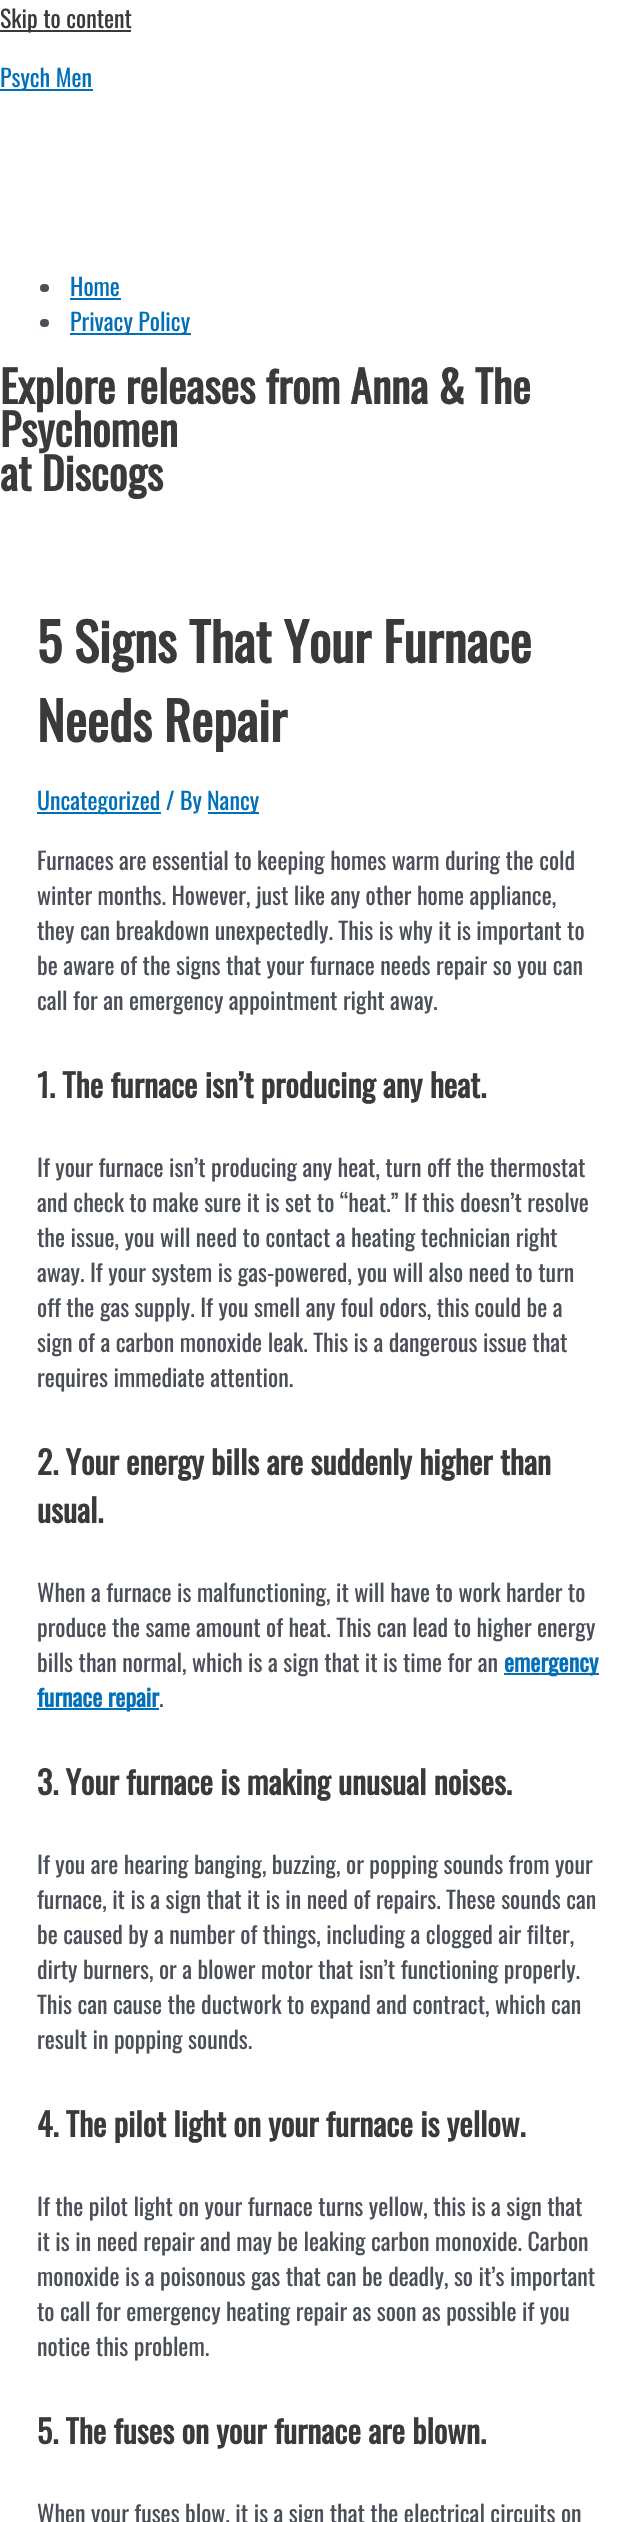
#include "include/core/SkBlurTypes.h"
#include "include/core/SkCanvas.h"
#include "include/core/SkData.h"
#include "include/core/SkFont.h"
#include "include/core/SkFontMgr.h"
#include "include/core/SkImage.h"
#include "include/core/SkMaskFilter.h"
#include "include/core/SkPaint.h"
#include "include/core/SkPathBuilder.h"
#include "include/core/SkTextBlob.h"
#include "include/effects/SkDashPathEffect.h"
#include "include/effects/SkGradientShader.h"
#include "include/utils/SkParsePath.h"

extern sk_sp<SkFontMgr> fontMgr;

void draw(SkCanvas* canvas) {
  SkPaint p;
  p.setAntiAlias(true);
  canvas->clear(SK_ColorWHITE);
  p.setColor(SkColorSetRGB(58, 58, 58));
  canvas->drawRect(SkRect::MakeLTRB(0, 30, 131, 32), p);
  p.setColor(SkColorSetRGB(1, 112, 185));
  canvas->drawRect(SkRect::MakeLTRB(0, 89, 93, 91), p);
  p.setColor(SkColorSetRGB(75, 79, 88));
  canvas->drawRoundRect(SkRect::MakeLTRB(40, 284, 49, 292), 4, 4, p);
  p.setColor(SkColorSetRGB(1, 112, 185));
  canvas->drawRect(SkRect::MakeLTRB(70, 298, 121, 300), p);
  p.setColor(SkColorSetRGB(75, 79, 88));
  canvas->drawRoundRect(SkRect::MakeLTRB(40, 319, 49, 327), 4, 4, p);
  p.setColor(SkColorSetRGB(1, 112, 185));
  canvas->drawRect(SkRect::MakeLTRB(70, 333, 191, 335), p);
  canvas->drawRect(SkRect::MakeLTRB(37, 812, 161, 814), p);
  canvas->drawRect(SkRect::MakeLTRB(208, 812, 259, 814), p);
  canvas->drawRect(SkRect::MakeLTRB(504, 1673, 599, 1675), p);
  canvas->drawRect(SkRect::MakeLTRB(37, 1708, 159, 1710), p);
  SkFont font1(fontMgr->matchFamilyStyle("Oswald", SkFontStyle::Normal()), 23.9f);
  font1.setSubpixel(true);
  p.setColor(SkColorSetRGB(58, 58, 58));
  canvas->drawString("Skip to content", 0, 28, font1, p);
  p.setColor(SkColorSetRGB(1, 112, 185));
  canvas->drawString("Psych Men", 0, 87, font1, p);
  canvas->drawString("Home", 70, 296, font1, p);
  canvas->drawString("Privacy Policy", 70, 331, font1, p);
  SkFont font2(fontMgr->matchFamilyStyle("Oswald", SkFontStyle::Bold()), 43.75f);
  font2.setSubpixel(true);
  p.setColor(SkColorSetRGB(58, 58, 58));
  canvas->drawString("Explore releases from Anna & The", 0, 404, font2, p);
  canvas->drawString("Psychomen", 0, 447, font2, p);
  canvas->drawString("at Discogs", 0, 491, font2, p);
  SkFont font3(fontMgr->matchFamilyStyle("Oswald", SkFontStyle::Bold()), 52.5f);
  font3.setSubpixel(true);
  canvas->drawString("5 Signs That Your Furnace", 37, 663, font3, p);
  canvas->drawString("Needs Repair", 37, 742, font3, p);
  p.setColor(SkColorSetRGB(1, 112, 185));
  canvas->drawString("Uncategorized / By", 37, 810, font1, p);
  canvas->drawString("Nancy", 207, 810, font1, p);
  p.setColor(SkColorSetRGB(75, 79, 88));
  canvas->drawString("Furnaces are essential to keeping homes warm during the cold", 37, 870, font1, p);
  canvas->drawString("winter months. However, just like any other home appliance,", 37, 905, font1, p);
  canvas->drawString("they can breakdown unexpectedly. This is why it is important to", 37, 940, font1, p);
  canvas->drawString("be aware of the signs that your furnace needs repair so you can", 37, 975, font1, p);
  canvas->drawString("call for an emergency appointment right away.", 37, 1010, font1, p);
  SkFont font4(fontMgr->matchFamilyStyle("Oswald", SkFontStyle::Bold()), 31.9f);
  font4.setSubpixel(true);
  p.setColor(SkColorSetRGB(58, 58, 58));
  canvas->drawString("1. The furnace isn’t producing any heat.", 37, 1098, font4, p);
  p.setColor(SkColorSetRGB(75, 79, 88));
  canvas->drawString("If your furnace isn’t producing any heat, turn off the thermostat", 37, 1177, font1, p);
  canvas->drawString("and check to make sure it is set to “heat.” If this doesn’t resolve", 37, 1212, font1, p);
  canvas->drawString("the issue, you will need to contact a heating technician right", 37, 1247, font1, p);
  canvas->drawString("away. If your system is gas-powered, you will also need to turn", 37, 1282, font1, p);
  canvas->drawString("off the gas supply. If you smell any foul odors, this could be a", 37, 1317, font1, p);
  canvas->drawString("sign of a carbon monoxide leak. This is a dangerous issue that", 37, 1352, font1, p);
  canvas->drawString("requires immediate attention.", 37, 1387, font1, p);
  p.setColor(SkColorSetRGB(58, 58, 58));
  canvas->drawString("2. Your energy bills are suddenly higher than", 37, 1475, font4, p);
  canvas->drawString("usual.", 37, 1523, font4, p);
  p.setColor(SkColorSetRGB(75, 79, 88));
  canvas->drawString("When a furnace is malfunctioning, it will have to work harder to", 37, 1602, font1, p);
  canvas->drawString("produce the same amount of heat. This can lead to higher energy", 37, 1637, font1, p);
  canvas->drawString("bills than normal, which is a sign that it is time for an", 37, 1672, font1, p);
  SkFont font5(fontMgr->matchFamilyStyle("Oswald", SkFontStyle::Bold()), 23.9f);
  font5.setSubpixel(true);
  p.setColor(SkColorSetRGB(1, 112, 185));
  canvas->drawString("emergency", 504, 1672, font5, p);
  canvas->drawString("furnace repair", 37, 1707, font5, p);
  p.setColor(SkColorSetRGB(75, 79, 88));
  canvas->drawString(".", 159, 1707, font1, p);
  p.setColor(SkColorSetRGB(58, 58, 58));
  canvas->drawString("3. Your furnace is making unusual noises.", 37, 1795, font4, p);
  p.setColor(SkColorSetRGB(75, 79, 88));
  canvas->drawString("If you are hearing banging, buzzing, or popping sounds from your", 37, 1874, font1, p);
  canvas->drawString("furnace, it is a sign that it is in need of repairs. These sounds can", 37, 1909, font1, p);
  canvas->drawString("be caused by a number of things, including a clogged air filter,", 37, 1944, font1, p);
  canvas->drawString("dirty burners, or a blower motor that isn’t functioning properly.", 37, 1979, font1, p);
  canvas->drawString("This can cause the ductwork to expand and contract, which can", 37, 2014, font1, p);
  canvas->drawString("result in popping sounds.", 37, 2049, font1, p);
  p.setColor(SkColorSetRGB(58, 58, 58));
  canvas->drawString("4. The pilot light on your furnace is yellow.", 37, 2137, font4, p);
  p.setColor(SkColorSetRGB(75, 79, 88));
  canvas->drawString("If the pilot light on your furnace turns yellow, this is a sign that", 37, 2216, font1, p);
  canvas->drawString("it is in need repair and may be leaking carbon monoxide. Carbon", 37, 2251, font1, p);
  canvas->drawString("monoxide is a poisonous gas that can be deadly, so it’s important", 37, 2286, font1, p);
  canvas->drawString("to call for emergency heating repair as soon as possible if you", 37, 2321, font1, p);
  canvas->drawString("notice this problem.", 37, 2356, font1, p);
  p.setColor(SkColorSetRGB(58, 58, 58));
  canvas->drawString("5. The fuses on your furnace are blown.", 37, 2444, font4, p);
  p.setColor(SkColorSetRGB(75, 79, 88));
  canvas->drawString("When your fuses blow, it is a sign that the electrical circuits on", 37, 2523, font1, p);
}
